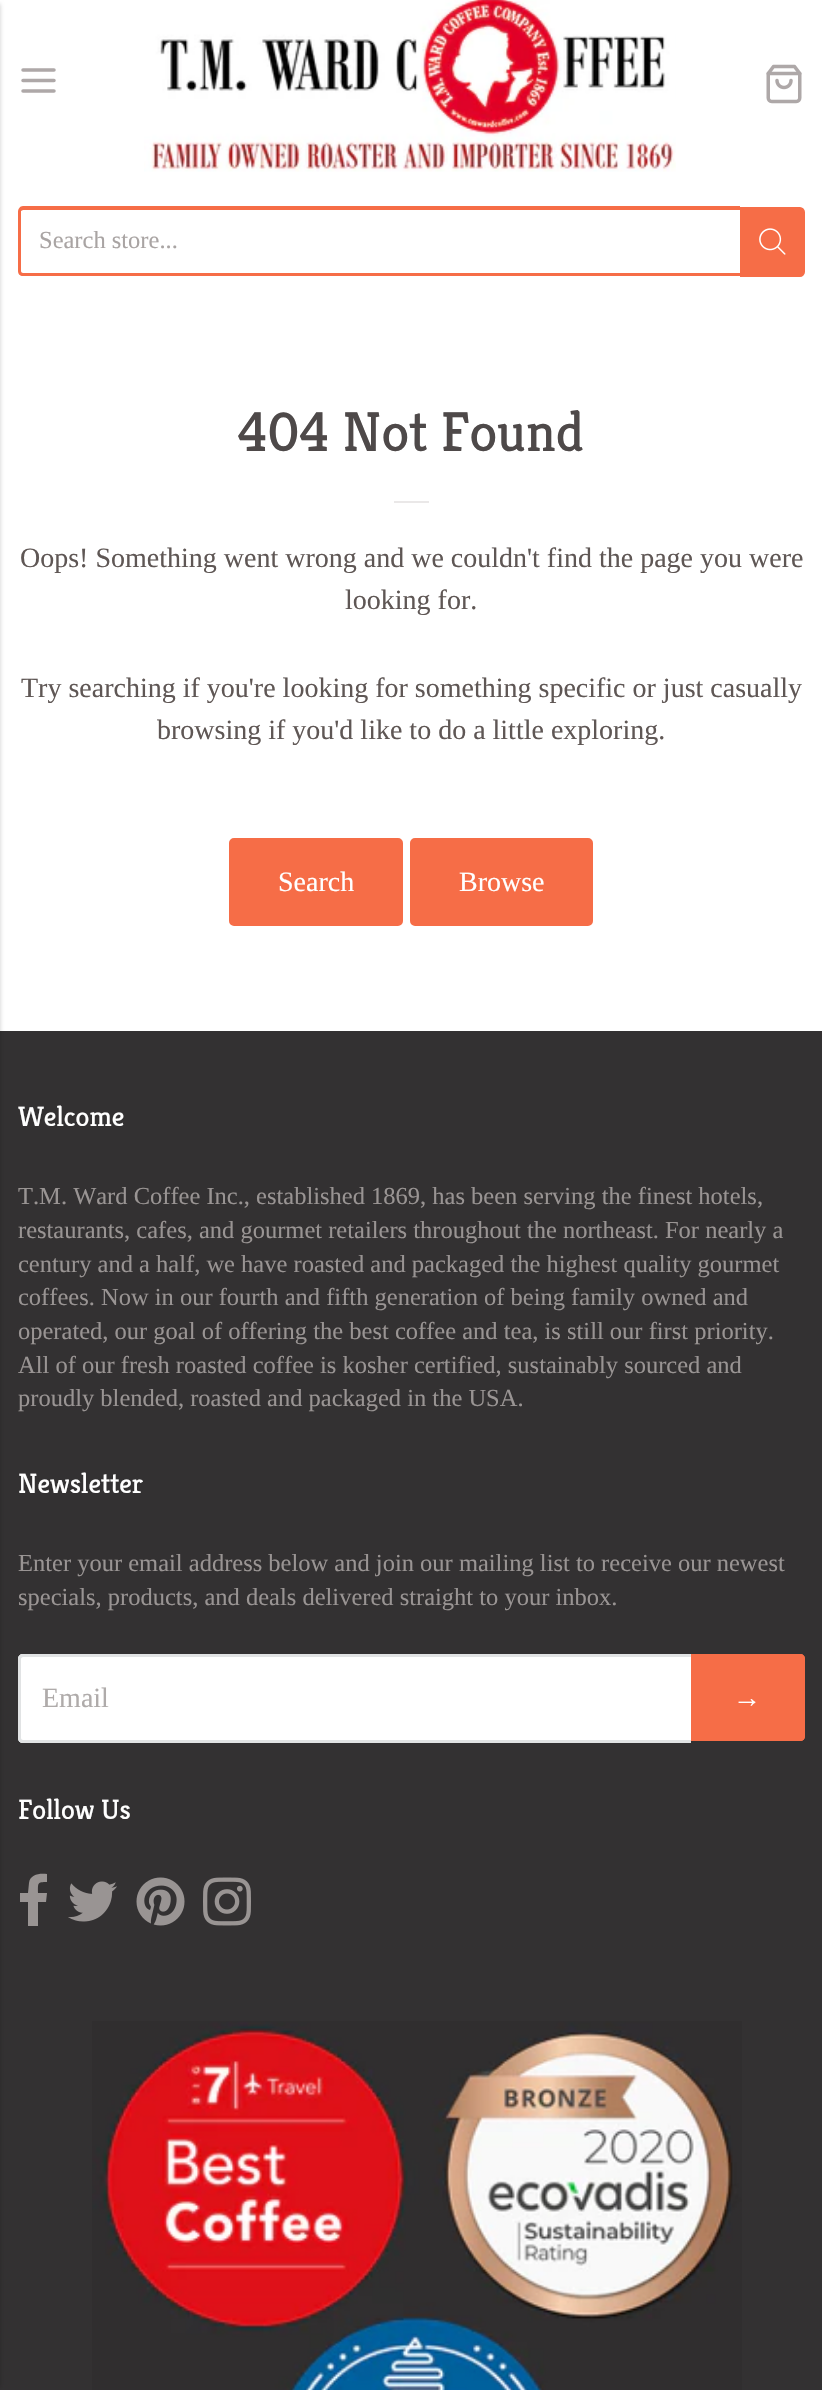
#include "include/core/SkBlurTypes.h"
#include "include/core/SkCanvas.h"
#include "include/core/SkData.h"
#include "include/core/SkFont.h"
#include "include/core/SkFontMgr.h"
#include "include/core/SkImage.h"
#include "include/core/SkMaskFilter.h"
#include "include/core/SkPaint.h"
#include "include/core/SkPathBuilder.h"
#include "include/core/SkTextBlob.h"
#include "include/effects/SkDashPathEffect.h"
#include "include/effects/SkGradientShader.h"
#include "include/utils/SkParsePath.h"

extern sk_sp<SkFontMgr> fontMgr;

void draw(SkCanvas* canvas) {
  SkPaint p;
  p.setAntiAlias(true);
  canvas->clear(SK_ColorWHITE);
  p.setColor(SkColorSetRGB(51, 49, 50));
  canvas->drawRect(SkRect::MakeLTRB(0, 1031, 822, 2390), p);
  p.setColor(SkColorSetARGB(51, 0, 0, 0));
  p.setMaskFilter(SkMaskFilter::MakeBlur(kNormal_SkBlurStyle, 2));
  canvas->drawRect(SkRect::MakeLTRB(-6, 4, 0, 2387), p);
  p.setMaskFilter(nullptr);
  p.setStyle(SkPaint::kStroke_Style);
  p.setStrokeWidth(3.5f);
  p.setStrokeCap(SkPaint::kRound_Cap);
  p.setStrokeJoin(SkPaint::kRound_Join);
  p.setColor(SkColorSetRGB(174, 168, 168));
  canvas->drawPath(SkPathBuilder().moveTo(23, 80.5f).lineTo(54, 80.5f).moveTo(23, 70).lineTo(54, 70).moveTo(23, 91).lineTo(54, 91).detach(), p);
  canvas->drawImageRect(SkImages::DeferredFromEncodedData(SkData::MakeFromFileName("images/1.png")), SkRect::MakeLTRB(144, 0, 676, 172), SkSamplingOptions());
  canvas->drawImageRect(SkImages::DeferredFromEncodedData(SkData::MakeFromFileName("images/2.png")), SkRect::MakeLTRB(766, 64, 802, 104), SkSamplingOptions());
  p.setStyle(SkPaint::kFill_Style);
  p.setColor(SkColorSetRGB(246, 109, 71));
  canvas->drawPath(SkPathBuilder(SkPathFillType::kEvenOdd).moveTo(23, 206).lineTo(740, 206).lineTo(740, 276).lineTo(23, 276).cubicTo(20, 276, 18, 274, 18, 271).lineTo(18, 212).cubicTo(18, 209, 20, 206, 23, 206).close().moveTo(23, 210).lineTo(740, 210).lineTo(740, 273).lineTo(23, 273).cubicTo(22, 273, 21, 272, 21, 271).lineTo(21, 211).close().detach(), p);
  canvas->drawPath(SkPathBuilder().moveTo(742, 209).lineTo(800, 209).cubicTo(801.5f, 209, 803, 210.5f, 803, 212).lineTo(803, 272).cubicTo(803, 273.5f, 801.5f, 275, 800, 275).lineTo(742, 275).close().detach(), p);
  p.setStyle(SkPaint::kStroke_Style);
  p.setStrokeWidth(4);
  p.setStrokeCap(SkPaint::kButt_Cap);
  p.setStrokeJoin(SkPaint::kMiter_Join);
  canvas->drawPath(SkPathBuilder().moveTo(742, 209).lineTo(800, 209).cubicTo(801.5f, 209, 803, 210.5f, 803, 212).lineTo(803, 272).cubicTo(803, 273.5f, 801.5f, 275, 800, 275).lineTo(742, 275).close().detach(), p);
  canvas->drawImageRect(SkImages::DeferredFromEncodedData(SkData::MakeFromFileName("images/3.png")), SkRect::MakeLTRB(759, 228, 786, 255), SkSamplingOptions());
  p.setStyle(SkPaint::kFill_Style);
  p.setColor(SkColorSetRGB(234, 232, 232));
  canvas->drawRect(SkRect::MakeLTRB(394, 501, 429, 503), p);
  p.setColor(SkColorSetRGB(246, 109, 71));
  canvas->drawRoundRect(SkRect::MakeLTRB(231, 840, 401, 924), 3, 3, p);
  p.setStyle(SkPaint::kStroke_Style);
  canvas->drawRoundRect(SkRect::MakeLTRB(231, 840, 401, 924), 3, 3, p);
  p.setStyle(SkPaint::kFill_Style);
  canvas->drawRoundRect(SkRect::MakeLTRB(412, 840, 591, 924), 3, 3, p);
  p.setStyle(SkPaint::kStroke_Style);
  canvas->drawRoundRect(SkRect::MakeLTRB(412, 840, 591, 924), 3, 3, p);
  p.setStyle(SkPaint::kFill_Style);
  p.setColor(SK_ColorWHITE);
  canvas->drawPath(SkPathBuilder().moveTo(23, 1654).lineTo(691, 1654).lineTo(691, 1743).lineTo(23, 1743).cubicTo(20, 1743, 18, 1741, 18, 1738).lineTo(18, 1659).cubicTo(18, 1656, 20, 1654, 23, 1654).close().detach(), p);
  p.setColor(SkColorSetRGB(225, 227, 228));
  canvas->drawPath(SkPathBuilder(SkPathFillType::kEvenOdd).moveTo(23, 1654).lineTo(691, 1654).lineTo(691, 1743).lineTo(23, 1743).cubicTo(20, 1743, 18, 1741, 18, 1738).lineTo(18, 1659).cubicTo(18, 1656, 20, 1654, 23, 1654).close().moveTo(23, 1657).lineTo(691, 1657).lineTo(691, 1740).lineTo(23, 1740).cubicTo(22, 1740, 21, 1739, 21, 1738).lineTo(21, 1659).cubicTo(21, 1658, 22, 1657, 23, 1657).close().detach(), p);
  p.setColor(SkColorSetRGB(246, 109, 71));
  canvas->drawPath(SkPathBuilder().moveTo(691, 1654).lineTo(800, 1654).cubicTo(803, 1654, 805, 1656, 805, 1659).lineTo(805, 1736).cubicTo(805, 1739, 803, 1741, 800, 1741).lineTo(691, 1741).close().detach(), p);
  canvas->drawPath(SkPathBuilder(SkPathFillType::kEvenOdd).moveTo(691, 1654).lineTo(800, 1654).cubicTo(803, 1654, 805, 1656, 805, 1659).lineTo(805, 1736).cubicTo(805, 1739, 803, 1741, 800, 1741).lineTo(691, 1741).close().moveTo(691, 1657).lineTo(800, 1657).cubicTo(801, 1657, 802, 1658, 802, 1659).lineTo(802, 1736).cubicTo(802, 1737, 801, 1738, 800, 1738).lineTo(691, 1738).close().detach(), p);
  p.setColor(SkColorSetRGB(153, 148, 147));
  canvas->drawPath(SkPathBuilder().moveTo(47, 1874).lineTo(47, 1882).cubicTo(37, 1882, 38, 1883, 38, 1893).lineTo(47, 1893).lineTo(46, 1902).lineTo(38, 1902).lineTo(38, 1926).lineTo(28, 1926).lineTo(28, 1902).lineTo(20, 1902).lineTo(20, 1893).lineTo(28, 1893).lineTo(29, 1883).cubicTo(30, 1874, 40, 1873, 47, 1874).close().detach(), p);
  canvas->drawImageRect(SkImages::DeferredFromEncodedData(SkData::MakeFromFileName("images/4.png")), SkRect::MakeLTRB(68, 1881, 117, 1922), SkSamplingOptions());
  canvas->drawImageRect(SkImages::DeferredFromEncodedData(SkData::MakeFromFileName("images/5.png")), SkRect::MakeLTRB(136, 1877, 185, 1926), SkSamplingOptions());
  canvas->drawImageRect(SkImages::DeferredFromEncodedData(SkData::MakeFromFileName("images/6.png")), SkRect::MakeLTRB(203, 1877, 251, 1926), SkSamplingOptions());
  canvas->drawImageRect(SkImages::DeferredFromEncodedData(SkData::MakeFromFileName("images/7.png")), SkRect::MakeLTRB(92, 2021, 742, 2390), SkSamplingOptions());
  SkFont font1(fontMgr->matchFamilyStyle("Liberation Serif", SkFontStyle::Normal()), 24.5f);
  font1.setSubpixel(true);
  p.setColor(SkColorSetRGB(169, 164, 163));
  canvas->drawString("Search store...", 39, 248, font1, p);
  SkFont font2(fontMgr->matchFamilyStyle("Kreon", SkFontStyle::Normal()), 56);
  font2.setSubpixel(true);
  p.setColor(SkColorSetRGB(78, 73, 73));
  canvas->drawString("404 Not Found", 238, 451, font2, p);
  SkFont font3(fontMgr->matchFamilyStyle("Liberation Serif", SkFontStyle::Normal()), 28);
  font3.setSubpixel(true);
  p.setColor(SkColorSetRGB(95, 87, 85));
  canvas->drawString("Oops! Something went wrong and we couldn't find the page you were", 20, 567, font3, p);
  canvas->drawString("looking for.", 345, 609, font3, p);
  canvas->drawString("Try searching if you're looking for something specific or just casually", 21, 697, font3, p);
  canvas->drawString("browsing if you'd like to do a little exploring.", 157, 739, font3, p);
  p.setColor(SK_ColorWHITE);
  canvas->drawString("Search", 278, 891, font3, p);
  canvas->drawString("Browse", 459, 891, font3, p);
  SkFont font4(fontMgr->matchFamilyStyle("Kreon", SkFontStyle::Normal()), 28);
  font4.setSubpixel(true);
  canvas->drawString("Welcome", 18, 1126, font4, p);
  p.setColor(SkColorSetRGB(153, 148, 147));
  canvas->drawString("T.M. Ward Coffee Inc., established 1869, has been serving the finest hotels,", 18, 1204, font1, p);
  canvas->drawString("restaurants, cafes, and gourmet retailers throughout the northeast. For nearly a", 18, 1238, font1, p);
  canvas->drawString("century and a half, we have roasted and packaged the highest quality gourmet", 18, 1272, font1, p);
  canvas->drawString("coffees. Now in our fourth and fifth generation of being family owned and", 18, 1305, font1, p);
  canvas->drawString("operated, our goal of offering the best coffee and tea, is still our first priority.", 18, 1339, font1, p);
  canvas->drawString("All of our fresh roasted coffee is kosher certified, sustainably sourced and", 18, 1373, font1, p);
  canvas->drawString("proudly blended, roasted and packaged in the USA.", 18, 1406, font1, p);
  p.setColor(SK_ColorWHITE);
  canvas->drawString("Newsletter", 18, 1493, font4, p);
  p.setColor(SkColorSetRGB(153, 148, 147));
  canvas->drawString("Enter your email address below and join our mailing list to receive our newest", 18, 1571, font1, p);
  canvas->drawString("specials, products, and deals delivered straight to your inbox.", 18, 1605, font1, p);
  p.setColor(SkColorSetRGB(175, 171, 170));
  canvas->drawString("Email", 42, 1707, font3, p);
  p.setColor(SK_ColorWHITE);
  canvas->drawString("→", 733, 1707, font3, p);
  canvas->drawString("Follow Us", 18, 1819, font4, p);
}
